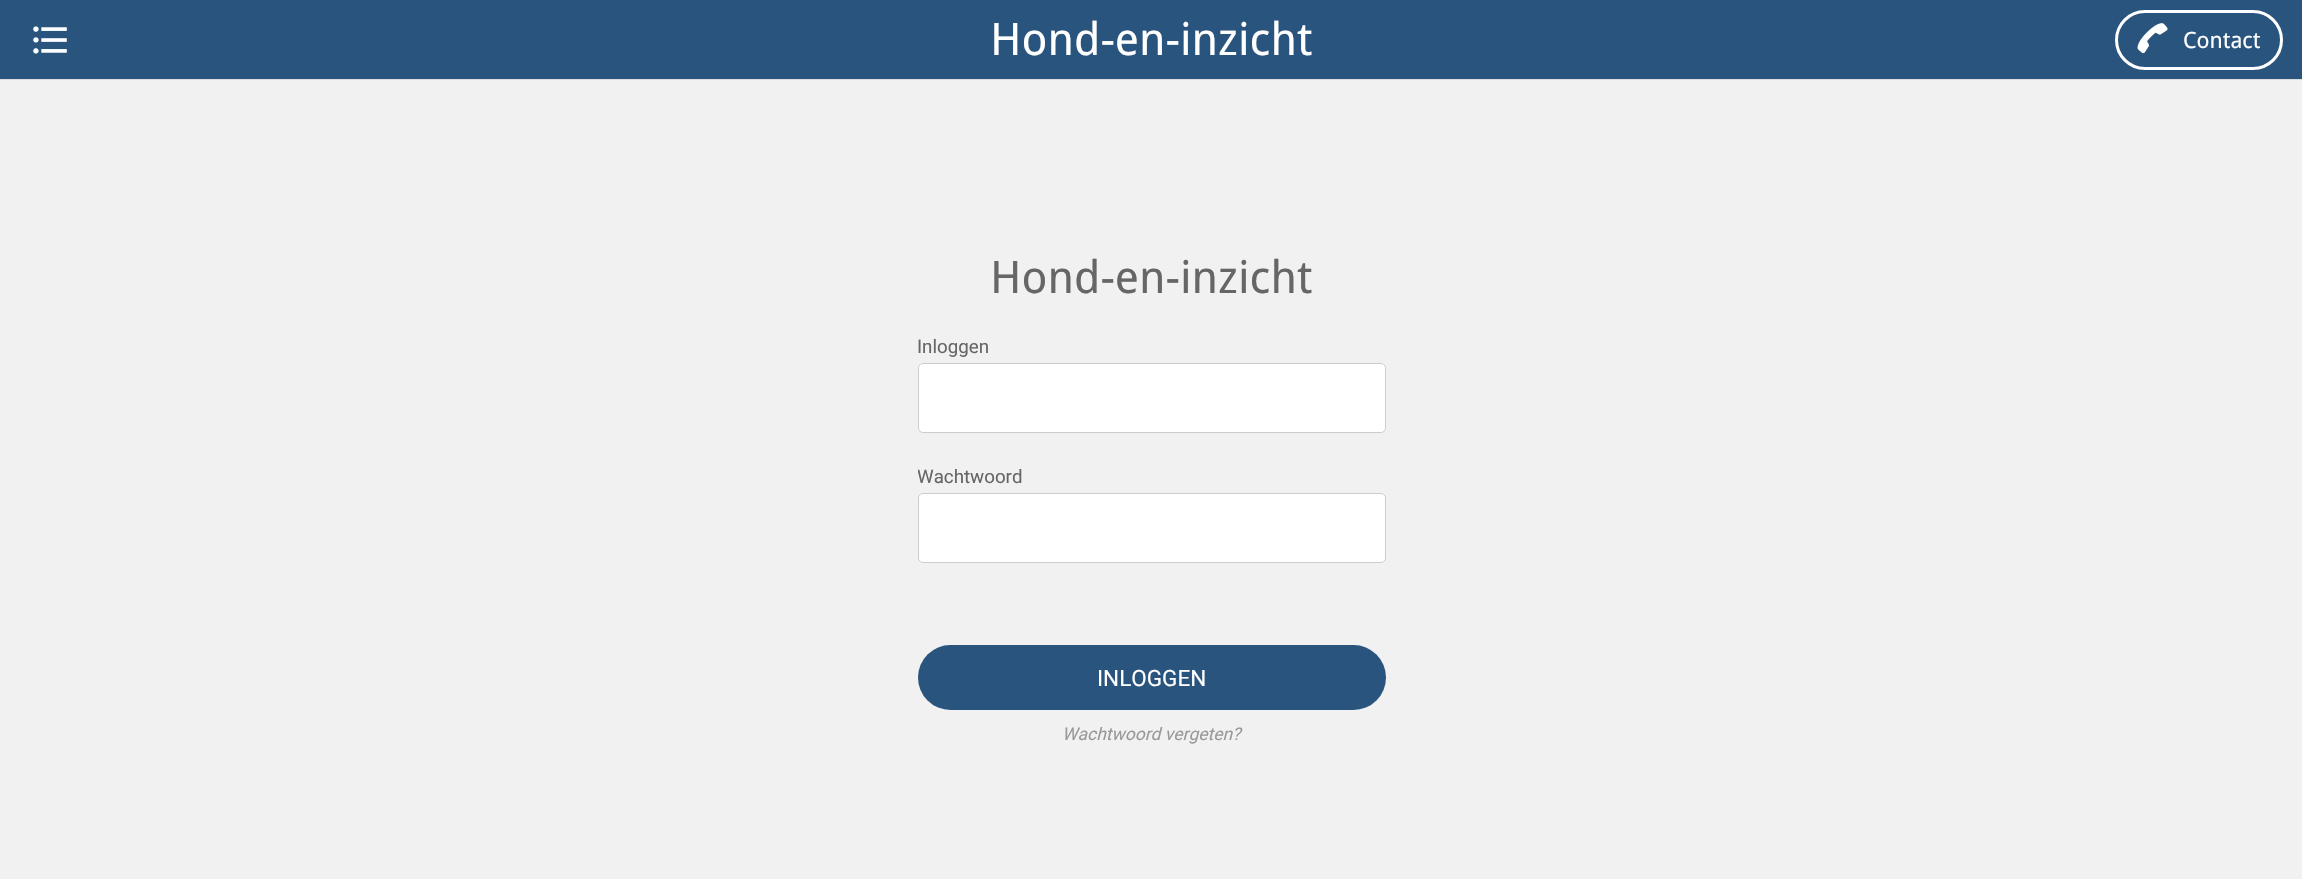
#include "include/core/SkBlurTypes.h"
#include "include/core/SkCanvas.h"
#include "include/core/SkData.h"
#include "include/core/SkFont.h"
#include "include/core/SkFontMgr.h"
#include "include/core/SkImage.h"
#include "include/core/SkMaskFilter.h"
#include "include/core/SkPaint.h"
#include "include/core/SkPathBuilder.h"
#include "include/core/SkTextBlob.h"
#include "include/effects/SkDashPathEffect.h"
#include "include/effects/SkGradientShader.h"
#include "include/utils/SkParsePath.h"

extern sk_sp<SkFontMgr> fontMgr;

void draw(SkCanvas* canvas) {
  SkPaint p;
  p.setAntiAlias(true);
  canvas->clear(SkColorSetRGB(241, 241, 241));
  p.setColor(SkColorSetRGB(41, 84, 126));
  canvas->drawRect(SkRect::MakeLTRB(0, 0, 2302, 79), p);
  p.setColor(SkColorSetRGB(221, 221, 221));
  canvas->drawRect(SkRect::MakeLTRB(0, 79, 2302, 80), p);
  canvas->drawImageRect(SkImages::DeferredFromEncodedData(SkData::MakeFromFileName("images/1.png")), SkRect::MakeLTRB(33, 26, 67, 54), SkSamplingOptions());
  p.setStyle(SkPaint::kStroke_Style);
  p.setStrokeWidth(3);
  p.setColor(SK_ColorWHITE);
  canvas->drawRoundRect(SkRect::MakeLTRB(2116.5f, 11.5f, 2281.5f, 68.5f), 28.5f, 28.5f, p);
  canvas->drawImageRect(SkImages::DeferredFromEncodedData(SkData::MakeFromFileName("images/2.png")), SkRect::MakeLTRB(2137, 23, 2168, 54), SkSamplingOptions());
  p.setStyle(SkPaint::kFill_Style);
  canvas->drawRoundRect(SkRect::MakeLTRB(918.5f, 363.5f, 1385.5f, 432.5f), 4.5f, 4.5f, p);
  p.setStyle(SkPaint::kStroke_Style);
  p.setStrokeWidth(1);
  p.setColor(SkColorSetRGB(204, 204, 204));
  canvas->drawRoundRect(SkRect::MakeLTRB(918.5f, 363.5f, 1385.5f, 432.5f), 4.5f, 4.5f, p);
  p.setStyle(SkPaint::kFill_Style);
  p.setColor(SK_ColorWHITE);
  canvas->drawRoundRect(SkRect::MakeLTRB(918.5f, 493.5f, 1385.5f, 562.5f), 4.5f, 4.5f, p);
  p.setStyle(SkPaint::kStroke_Style);
  p.setColor(SkColorSetRGB(204, 204, 204));
  canvas->drawRoundRect(SkRect::MakeLTRB(918.5f, 493.5f, 1385.5f, 562.5f), 4.5f, 4.5f, p);
  p.setStyle(SkPaint::kFill_Style);
  p.setColor(SkColorSetRGB(41, 84, 126));
  canvas->drawRoundRect(SkRect::MakeLTRB(918, 645, 1386, 710), 32.5f, 32.5f, p);
  SkFont font1(fontMgr->matchFamilyStyle("Droid Sans", SkFontStyle::Normal()), 45);
  font1.setSubpixel(true);
  p.setColor(SK_ColorWHITE);
  canvas->drawString("Hond-en-inzicht", 990, 55, font1, p);
  SkFont font2(fontMgr->matchFamilyStyle("Droid Sans", SkFontStyle::Normal()), 22.5f);
  font2.setSubpixel(true);
  canvas->drawString("Contact", 2183, 48, font2, p);
  p.setColor(SkColorSetRGB(102, 102, 102));
  canvas->drawString("Hond-en-inzicht", 990, 293, font1, p);
  SkFont font3(fontMgr->matchFamilyStyle("Roboto", SkFontStyle::Normal()), 18.75f);
  font3.setSubpixel(true);
  canvas->drawString("Inloggen", 917, 353, font3, p);
  canvas->save();
  canvas->clipRect(SkRect::MakeLTRB(918, 465, 1386, 488));
  canvas->drawString("Wachtwoord", 917, 483, font3, p);
  canvas->restore();
  SkFont font4(fontMgr->matchFamilyStyle("Roboto", SkFontStyle::Normal()), 22.5f);
  font4.setSubpixel(true);
  p.setColor(SK_ColorWHITE);
  canvas->drawString("INLOGGEN", 1097, 686, font4, p);
  SkFont font5(fontMgr->matchFamilyStyle("Roboto", SkFontStyle::Italic()), 17.5f);
  font5.setSubpixel(true);
  p.setColor(SkColorSetRGB(153, 153, 153));
  canvas->drawString("Wachtwoord vergeten?", 1062, 740, font5, p);
}
